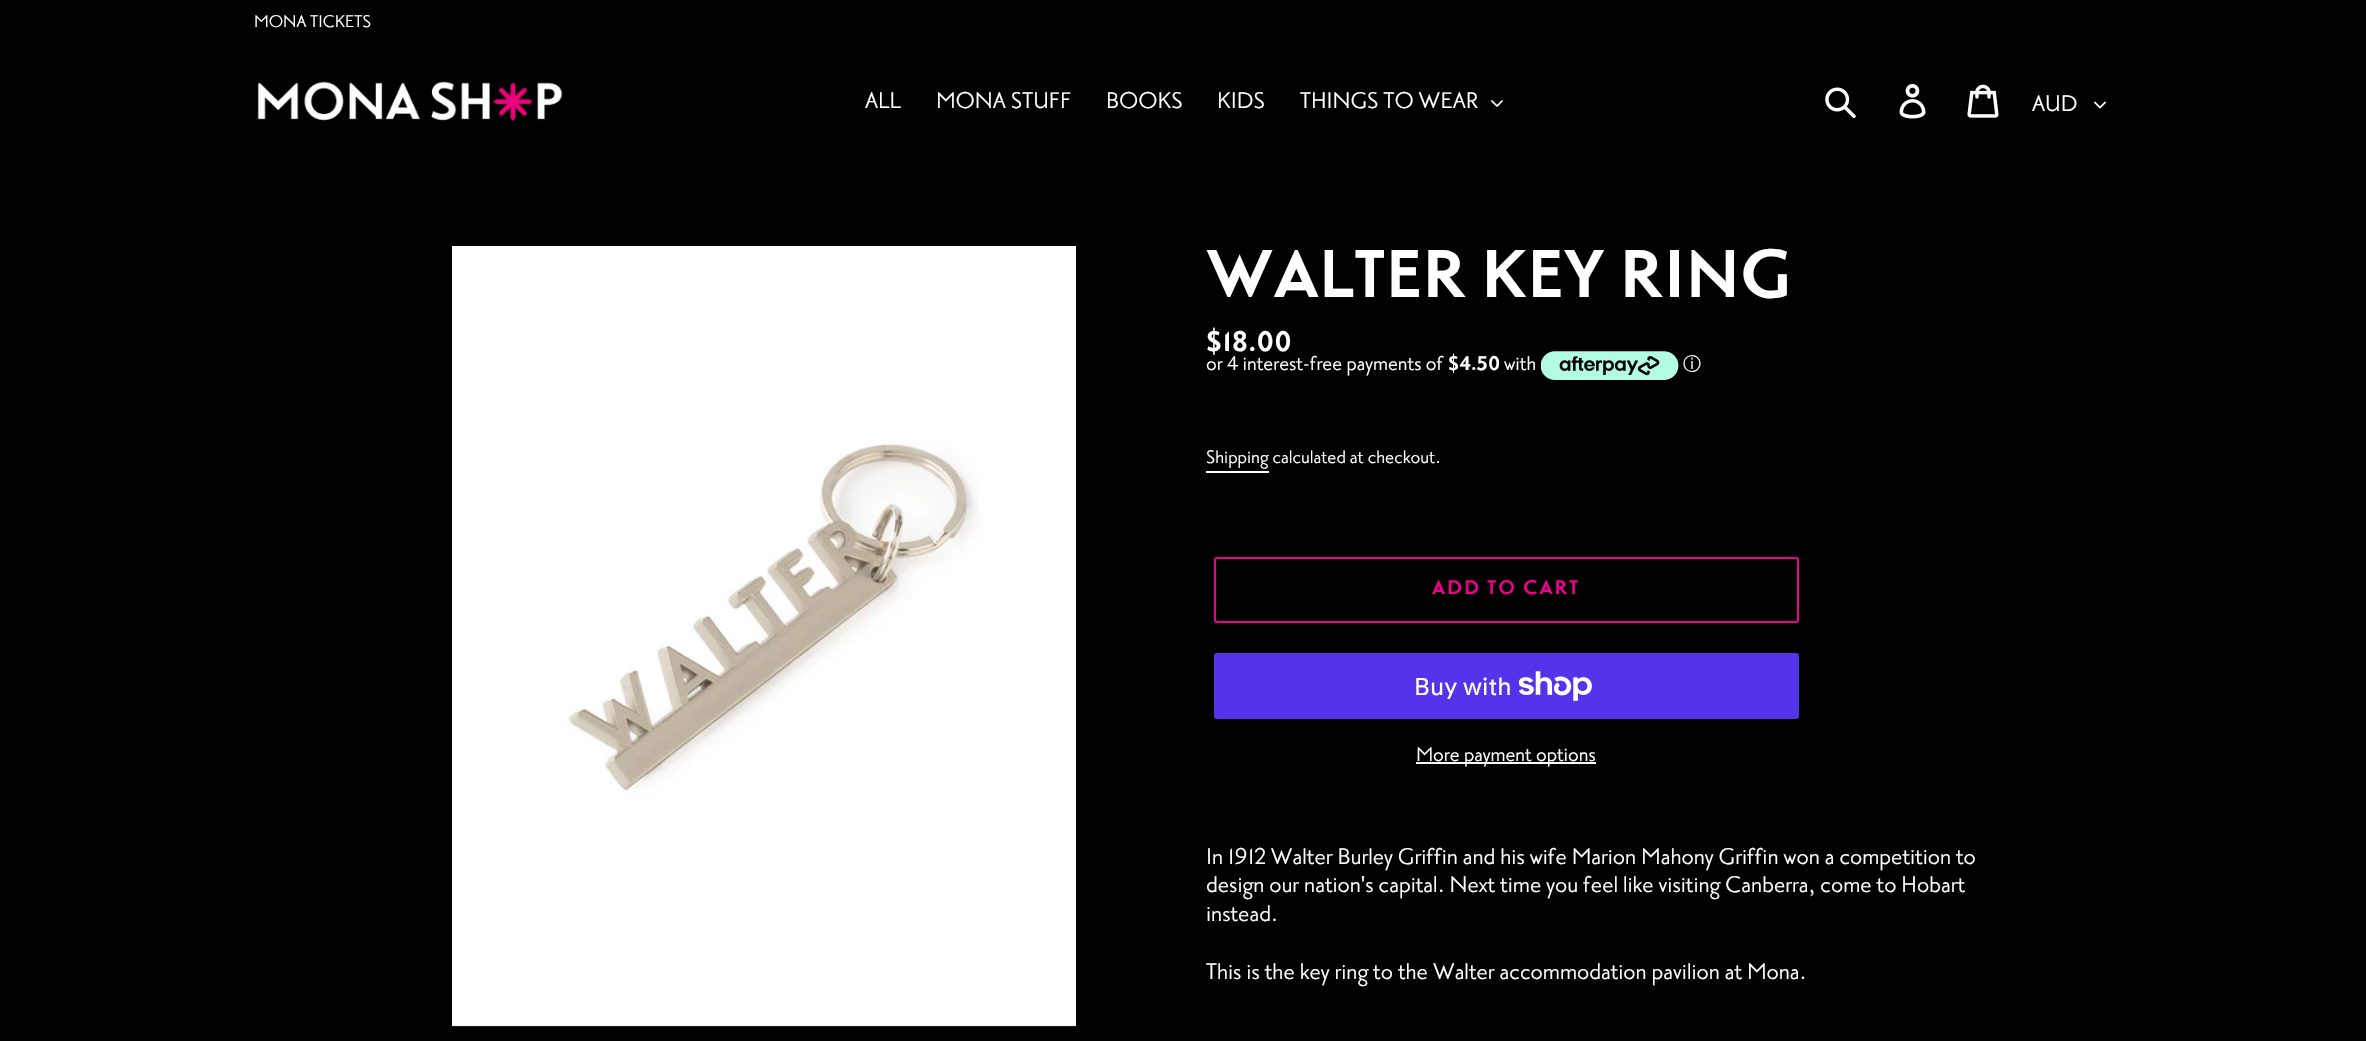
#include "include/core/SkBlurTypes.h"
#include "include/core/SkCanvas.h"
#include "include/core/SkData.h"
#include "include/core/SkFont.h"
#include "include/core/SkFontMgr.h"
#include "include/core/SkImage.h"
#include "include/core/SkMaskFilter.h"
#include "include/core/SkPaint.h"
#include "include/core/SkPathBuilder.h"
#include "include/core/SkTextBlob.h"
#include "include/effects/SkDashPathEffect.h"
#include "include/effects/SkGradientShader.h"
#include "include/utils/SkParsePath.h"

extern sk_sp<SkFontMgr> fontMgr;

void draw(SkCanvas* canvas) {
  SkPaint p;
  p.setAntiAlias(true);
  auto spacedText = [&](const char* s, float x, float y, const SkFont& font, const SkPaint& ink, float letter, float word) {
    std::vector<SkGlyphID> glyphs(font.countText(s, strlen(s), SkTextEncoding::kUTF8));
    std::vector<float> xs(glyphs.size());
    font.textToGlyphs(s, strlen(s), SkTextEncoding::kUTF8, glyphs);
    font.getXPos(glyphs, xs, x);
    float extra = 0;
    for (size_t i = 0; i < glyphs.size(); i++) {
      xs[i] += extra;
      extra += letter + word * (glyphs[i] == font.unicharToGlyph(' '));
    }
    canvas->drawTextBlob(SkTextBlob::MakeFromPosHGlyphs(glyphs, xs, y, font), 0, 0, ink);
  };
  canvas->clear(SK_ColorBLACK);
  canvas->drawImageRect(SkImages::DeferredFromEncodedData(SkData::MakeFromFileName("images/1.png")), SkRect::MakeLTRB(257, 81, 563, 121), SkSamplingOptions());
  canvas->drawImageRect(SkImages::DeferredFromEncodedData(SkData::MakeFromFileName("images/2.png")), SkRect::MakeLTRB(1491, 100, 1503, 107), SkSamplingOptions());
  canvas->drawImageRect(SkImages::DeferredFromEncodedData(SkData::MakeFromFileName("images/3.png")), SkRect::MakeLTRB(1825, 87, 1856, 118), SkSamplingOptions());
  canvas->drawImageRect(SkImages::DeferredFromEncodedData(SkData::MakeFromFileName("images/4.png")), SkRect::MakeLTRB(1899, 84, 1926, 119), SkSamplingOptions());
  canvas->drawImageRect(SkImages::DeferredFromEncodedData(SkData::MakeFromFileName("images/5.png")), SkRect::MakeLTRB(1967, 84, 1999, 118), SkSamplingOptions());
  canvas->drawImageRect(SkImages::DeferredFromEncodedData(SkData::MakeFromFileName("images/6.png")), SkRect::MakeLTRB(2094, 101, 2106, 109), SkSamplingOptions());
  canvas->drawImageRect(SkImages::DeferredFromEncodedData(SkData::MakeFromFileName("images/7.png")), SkRect::MakeLTRB(452, 246, 1076, 1027), SkSamplingOptions());
  canvas->drawImageRect(SkImages::DeferredFromEncodedData(SkData::MakeFromFileName("images/8.png")), SkRect::MakeLTRB(1541, 351, 1679, 380), SkSamplingOptions());
  p.setColor(SK_ColorWHITE);
  canvas->drawRect(SkRect::MakeLTRB(1206, 471, 1269, 473), p);
  p.setStyle(SkPaint::kStroke_Style);
  p.setStrokeWidth(2);
  p.setColor(SkColorSetRGB(236, 0, 140));
  canvas->drawRoundRect(SkRect::MakeLTRB(1215, 558, 1798, 622), 2, 2, p);
  p.setStyle(SkPaint::kFill_Style);
  p.setColor(SkColorSetRGB(84, 51, 235));
  canvas->drawRoundRect(SkRect::MakeLTRB(1214, 653, 1799, 719), 3, 3, p);
  canvas->drawImageRect(SkImages::DeferredFromEncodedData(SkData::MakeFromFileName("images/9.png")), SkRect::MakeLTRB(1518, 671, 1592, 701), SkSamplingOptions());
  p.setColor(SK_ColorWHITE);
  canvas->drawRect(SkRect::MakeLTRB(1416, 762, 1596, 764), p);
  SkFont font1(fontMgr->matchFamilyStyle("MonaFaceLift", SkFontStyle::Normal()), 18);
  font1.setSubpixel(true);
  canvas->drawString("MONA TICKETS", 254, 27, font1, p);
  SkFont font2(fontMgr->matchFamilyStyle("MonaFaceLift", SkFontStyle::Normal()), 24);
  font2.setSubpixel(true);
  canvas->drawString("ALL", 865, 108, font2, p);
  canvas->drawString("MONA STUFF", 936, 108, font2, p);
  canvas->drawString("BOOKS", 1106, 108, font2, p);
  canvas->drawString("KIDS", 1217, 108, font2, p);
  canvas->drawString("THINGS TO WEAR", 1300, 108, font2, p);
  canvas->drawString("AUD", 2032, 111, font2, p);
  SkFont font3(fontMgr->matchFamilyStyle("MonaFaceLift", SkFontStyle::Bold()), 72);
  font3.setSubpixel(true);
  canvas->drawString("WALTER KEY RING", 1206, 297, font3, p);
  SkFont font4(fontMgr->matchFamilyStyle("MonaFaceLift", SkFontStyle::Bold()), 30);
  font4.setSubpixel(true);
  canvas->drawString("$18.00", 1206, 351, font4, p);
  SkFont font5(fontMgr->matchFamilyStyle("MonaFaceLift", SkFontStyle::Normal()), 21);
  font5.setSubpixel(true);
  canvas->drawString("or 4 interest-free payments of", 1206, 370, font5, p);
  SkFont font6(fontMgr->matchFamilyStyle("MonaFaceLift", SkFontStyle::Bold()), 21);
  font6.setSubpixel(true);
  canvas->drawString("$4.50", 1448, 370, font6, p);
  canvas->drawString("with", 1504, 370, font5, p);
  SkFont font7(fontMgr->matchFamilyStyle("WenQuanYi Zen Hei", SkFontStyle(500, SkFontStyle::kNormal_Width, SkFontStyle::kUpright_Slant)), 18);
  font7.setSubpixel(true);
  canvas->drawString("ⓘ", 1683, 370, font7, p);
  SkFont font8(fontMgr->matchFamilyStyle("MonaFaceLift", SkFontStyle::Normal()), 19.25f);
  font8.setSubpixel(true);
  canvas->drawString("Shipping calculated at checkout.", 1206, 463, font8, p);
  p.setColor(SkColorSetRGB(236, 0, 140));
  spacedText("ADD TO CART", 1432, 594, font6, p, 1.75f, 0);
  SkFont font9(fontMgr->matchFamilyStyle("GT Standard", SkFontStyle::Normal()), 24);
  font9.setSubpixel(true);
  p.setColor(SK_ColorWHITE);
  canvas->drawString("Buy with", 1414, 695, font9, p);
  canvas->drawString("More payment options", 1416, 761, font5, p);
  canvas->drawString("In 1912 Walter Burley Griffin and his wife Marion Mahony Griffin won a competition to", 1206, 864, font2, p);
  canvas->drawString("design our nation's capital. Next time you feel like visiting Canberra, come to Hobart", 1206, 892, font2, p);
  canvas->drawString("instead.", 1206, 921, font2, p);
  canvas->drawString("This is the key ring to the Walter accommodation pavilion at Mona.", 1206, 979, font2, p);
}
